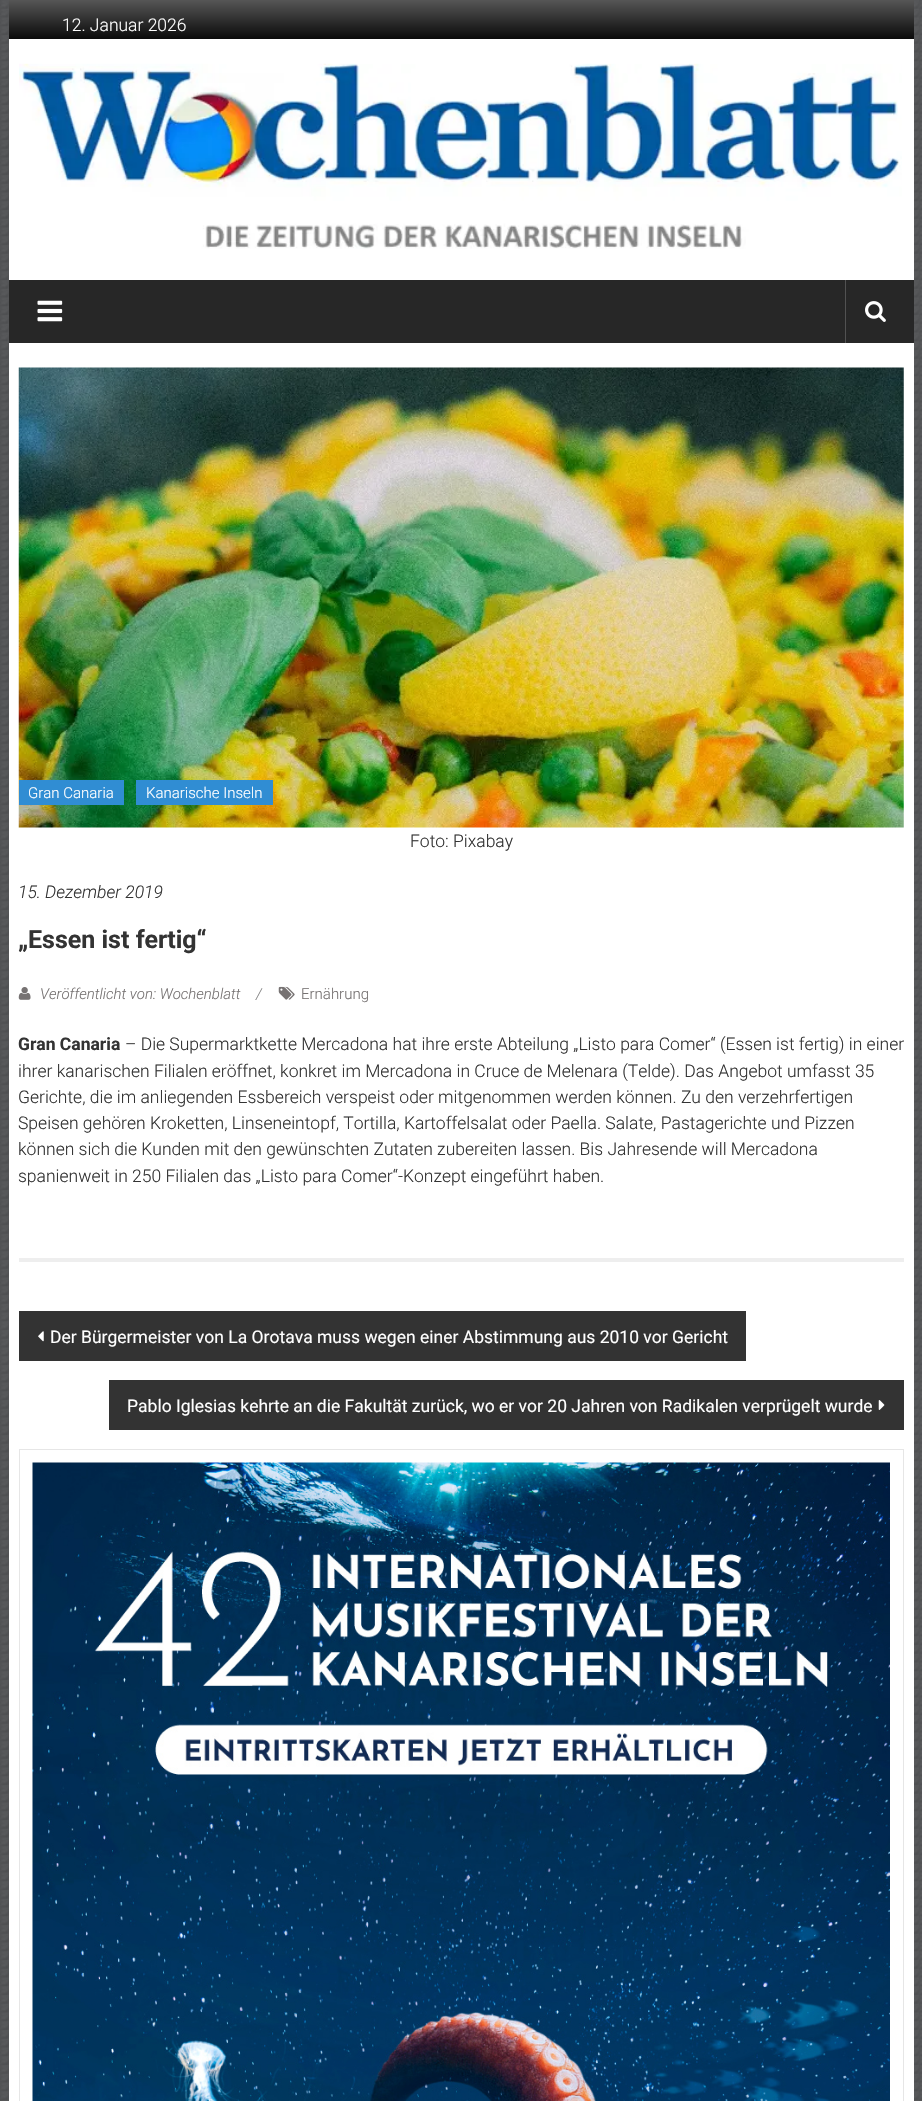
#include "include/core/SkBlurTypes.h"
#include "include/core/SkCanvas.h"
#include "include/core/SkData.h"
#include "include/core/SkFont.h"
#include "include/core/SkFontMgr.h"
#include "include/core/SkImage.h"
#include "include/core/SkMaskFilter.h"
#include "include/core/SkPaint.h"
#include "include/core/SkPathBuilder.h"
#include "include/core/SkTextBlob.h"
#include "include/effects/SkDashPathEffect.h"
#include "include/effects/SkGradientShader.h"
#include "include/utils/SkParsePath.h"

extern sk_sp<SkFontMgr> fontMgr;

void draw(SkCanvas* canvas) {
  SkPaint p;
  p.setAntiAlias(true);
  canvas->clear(SK_ColorWHITE);
  canvas->drawImageRect(SkImages::DeferredFromEncodedData(SkData::MakeFromFileName("images/1.png")), SkRect::MakeLTRB(0, 0, 922, 2101), SkSamplingOptions());
  p.setColor(SK_ColorWHITE);
  canvas->drawRect(SkRect::MakeLTRB(9, 39, 914, 2101), p);
  {
    const SkColor colors[] = {SkColorSetRGB(86, 86, 86), SkColorSetRGB(10, 10, 10)};
    const float stops[] = {0, 1};
    const SkPoint ends[] = {{461, 0}, {461, 39}};
    p.setShader(SkGradientShader::MakeLinear(ends, colors, stops, 2, SkTileMode::kClamp));
    p.setAlpha(255);
  }
  canvas->drawRect(SkRect::MakeLTRB(9, 0, 914, 39), p);
  canvas->drawImageRect(SkImages::DeferredFromEncodedData(SkData::MakeFromFileName("images/2.png")), SkRect::MakeLTRB(19, 63, 902, 249), SkSamplingOptions());
  p.setShader(nullptr);
  p.setColor(SkColorSetRGB(39, 39, 39));
  canvas->drawRect(SkRect::MakeLTRB(9, 280, 914, 343), p);
  canvas->drawImageRect(SkImages::DeferredFromEncodedData(SkData::MakeFromFileName("images/3.png")), SkRect::MakeLTRB(37, 300, 63, 322), SkSamplingOptions());
  p.setColor(SkColorSetRGB(82, 82, 82));
  canvas->drawRect(SkRect::MakeLTRB(845, 280, 846, 343), p);
  canvas->drawImageRect(SkImages::DeferredFromEncodedData(SkData::MakeFromFileName("images/4.png")), SkRect::MakeLTRB(865, 301, 886, 322), SkSamplingOptions());
  p.setColor(SkColorSetRGB(238, 238, 238));
  canvas->drawRect(SkRect::MakeLTRB(19, 1258, 904, 1262), p);
  canvas->drawImageRect(SkImages::DeferredFromEncodedData(SkData::MakeFromFileName("images/5.png")), SkRect::MakeLTRB(18, 367, 904, 828), SkSamplingOptions());
  p.setColor(SkColorSetRGB(48, 141, 211));
  canvas->drawRect(SkRect::MakeLTRB(19, 780, 124, 805), p);
  canvas->drawRect(SkRect::MakeLTRB(136, 780, 273, 805), p);
  canvas->drawImageRect(SkImages::DeferredFromEncodedData(SkData::MakeFromFileName("images/6.png")), SkRect::MakeLTRB(18, 987, 31, 1000), SkSamplingOptions());
  canvas->drawImageRect(SkImages::DeferredFromEncodedData(SkData::MakeFromFileName("images/7.png")), SkRect::MakeLTRB(278, 986, 295, 1000), SkSamplingOptions());
  p.setColor(SkColorSetRGB(51, 51, 51));
  canvas->drawRect(SkRect::MakeLTRB(19, 1311, 746, 1361), p);
  canvas->drawImageRect(SkImages::DeferredFromEncodedData(SkData::MakeFromFileName("images/8.png")), SkRect::MakeLTRB(38, 1331, 44, 1342), SkSamplingOptions());
  canvas->drawRect(SkRect::MakeLTRB(109, 1380, 904, 1430), p);
  canvas->drawImageRect(SkImages::DeferredFromEncodedData(SkData::MakeFromFileName("images/9.png")), SkRect::MakeLTRB(878, 1400, 885, 1410), SkSamplingOptions());
  p.setStyle(SkPaint::kStroke_Style);
  p.setStrokeWidth(1);
  p.setColor(SkColorSetRGB(230, 230, 230));
  canvas->drawRect(SkRect::MakeLTRB(19.5f, 1449.5f, 903.5f, 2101.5f), p);
  canvas->drawImageRect(SkImages::DeferredFromEncodedData(SkData::MakeFromFileName("images/10.png")), SkRect::MakeLTRB(32, 1462, 890, 2101), SkSamplingOptions());
  SkFont font1(fontMgr->matchFamilyStyle("Roboto", SkFontStyle(300, SkFontStyle::kNormal_Width, SkFontStyle::kUpright_Slant)), 17.5f);
  font1.setSubpixel(true);
  p.setStyle(SkPaint::kFill_Style);
  p.setColor(SK_ColorWHITE);
  canvas->drawString("12. Januar 2026", 62, 31, font1, p);
  SkFont font2(fontMgr->matchFamilyStyle("Roboto", SkFontStyle(300, SkFontStyle::kNormal_Width, SkFontStyle::kUpright_Slant)), 15);
  font2.setSubpixel(true);
  canvas->drawString("Gran Canaria", 28, 798, font2, p);
  canvas->drawString("Kanarische Inseln", 146, 798, font2, p);
  p.setColor(SkColorSetRGB(51, 51, 51));
  canvas->drawString("Foto: Pixabay", 410, 847, font1, p);
  SkFont font3(fontMgr->matchFamilyStyle("Roboto", SkFontStyle(300, SkFontStyle::kNormal_Width, SkFontStyle::kItalic_Slant)), 17.5f);
  font3.setSubpixel(true);
  canvas->drawString("15. Dezember 2019", 18, 898, font3, p);
  SkFont font4(fontMgr->matchFamilyStyle("Roboto", SkFontStyle::Bold()), 25);
  font4.setSubpixel(true);
  canvas->drawString("„Essen ist fertig“", 18, 948, font4, p);
  SkFont font5(fontMgr->matchFamilyStyle("Roboto", SkFontStyle(300, SkFontStyle::kNormal_Width, SkFontStyle::kItalic_Slant)), 15);
  font5.setSubpixel(true);
  p.setColor(SkColorSetRGB(118, 114, 114));
  canvas->drawString("Veröffentlicht von: Wochenblatt", 40, 999, font5, p);
  p.setColor(SkColorSetRGB(128, 128, 128));
  canvas->drawString("/", 256, 999, font5, p);
  p.setColor(SkColorSetRGB(118, 114, 114));
  canvas->drawString("Ernährung", 301, 999, font2, p);
  SkFont font6(fontMgr->matchFamilyStyle("Roboto", SkFontStyle::Bold()), 17.5f);
  font6.setSubpixel(true);
  p.setColor(SkColorSetRGB(51, 51, 51));
  canvas->drawString("Gran Canaria", 18, 1050, font6, p);
  canvas->drawString("– Die Supermarktkette Mercadona hat ihre erste Abteilung „Listo para Comer“ (Essen ist fertig) in einer", 125, 1050, font1, p);
  canvas->drawString("ihrer kanarischen Filialen eröffnet, konkret im Mercadona in Cruce de Melenara (Telde). Das Angebot umfasst 35", 18, 1077, font1, p);
  canvas->drawString("Gerichte, die im anliegenden Essbereich verspeist oder mitgenommen werden können. Zu den verzehrfertigen", 18, 1103, font1, p);
  canvas->drawString("Speisen gehören Kroketten, Linseneintopf, Tortilla, Kartoffelsalat oder Paella. Salate, Pastagerichte und Pizzen", 18, 1129, font1, p);
  canvas->drawString("können sich die Kunden mit den gewünschten Zutaten zubereiten lassen. Bis Jahresende will Mercadona", 18, 1155, font1, p);
  canvas->drawString("spanienweit in 250 Filialen das „Listo para Comer“-Konzept eingeführt haben.", 18, 1182, font1, p);
  SkFont font7(fontMgr->matchFamilyStyle("Roboto", SkFontStyle::Normal()), 17.5f);
  font7.setSubpixel(true);
  p.setColor(SK_ColorWHITE);
  canvas->drawString("Der Bürgermeister von La Orotava muss wegen einer Abstimmung aus 2010 vor Gericht", 50, 1343, font7, p);
  canvas->drawString("Pablo Iglesias kehrte an die Fakultät zurück, wo er vor 20 Jahren von Radikalen verprügelt wurde", 127, 1412, font7, p);
}
